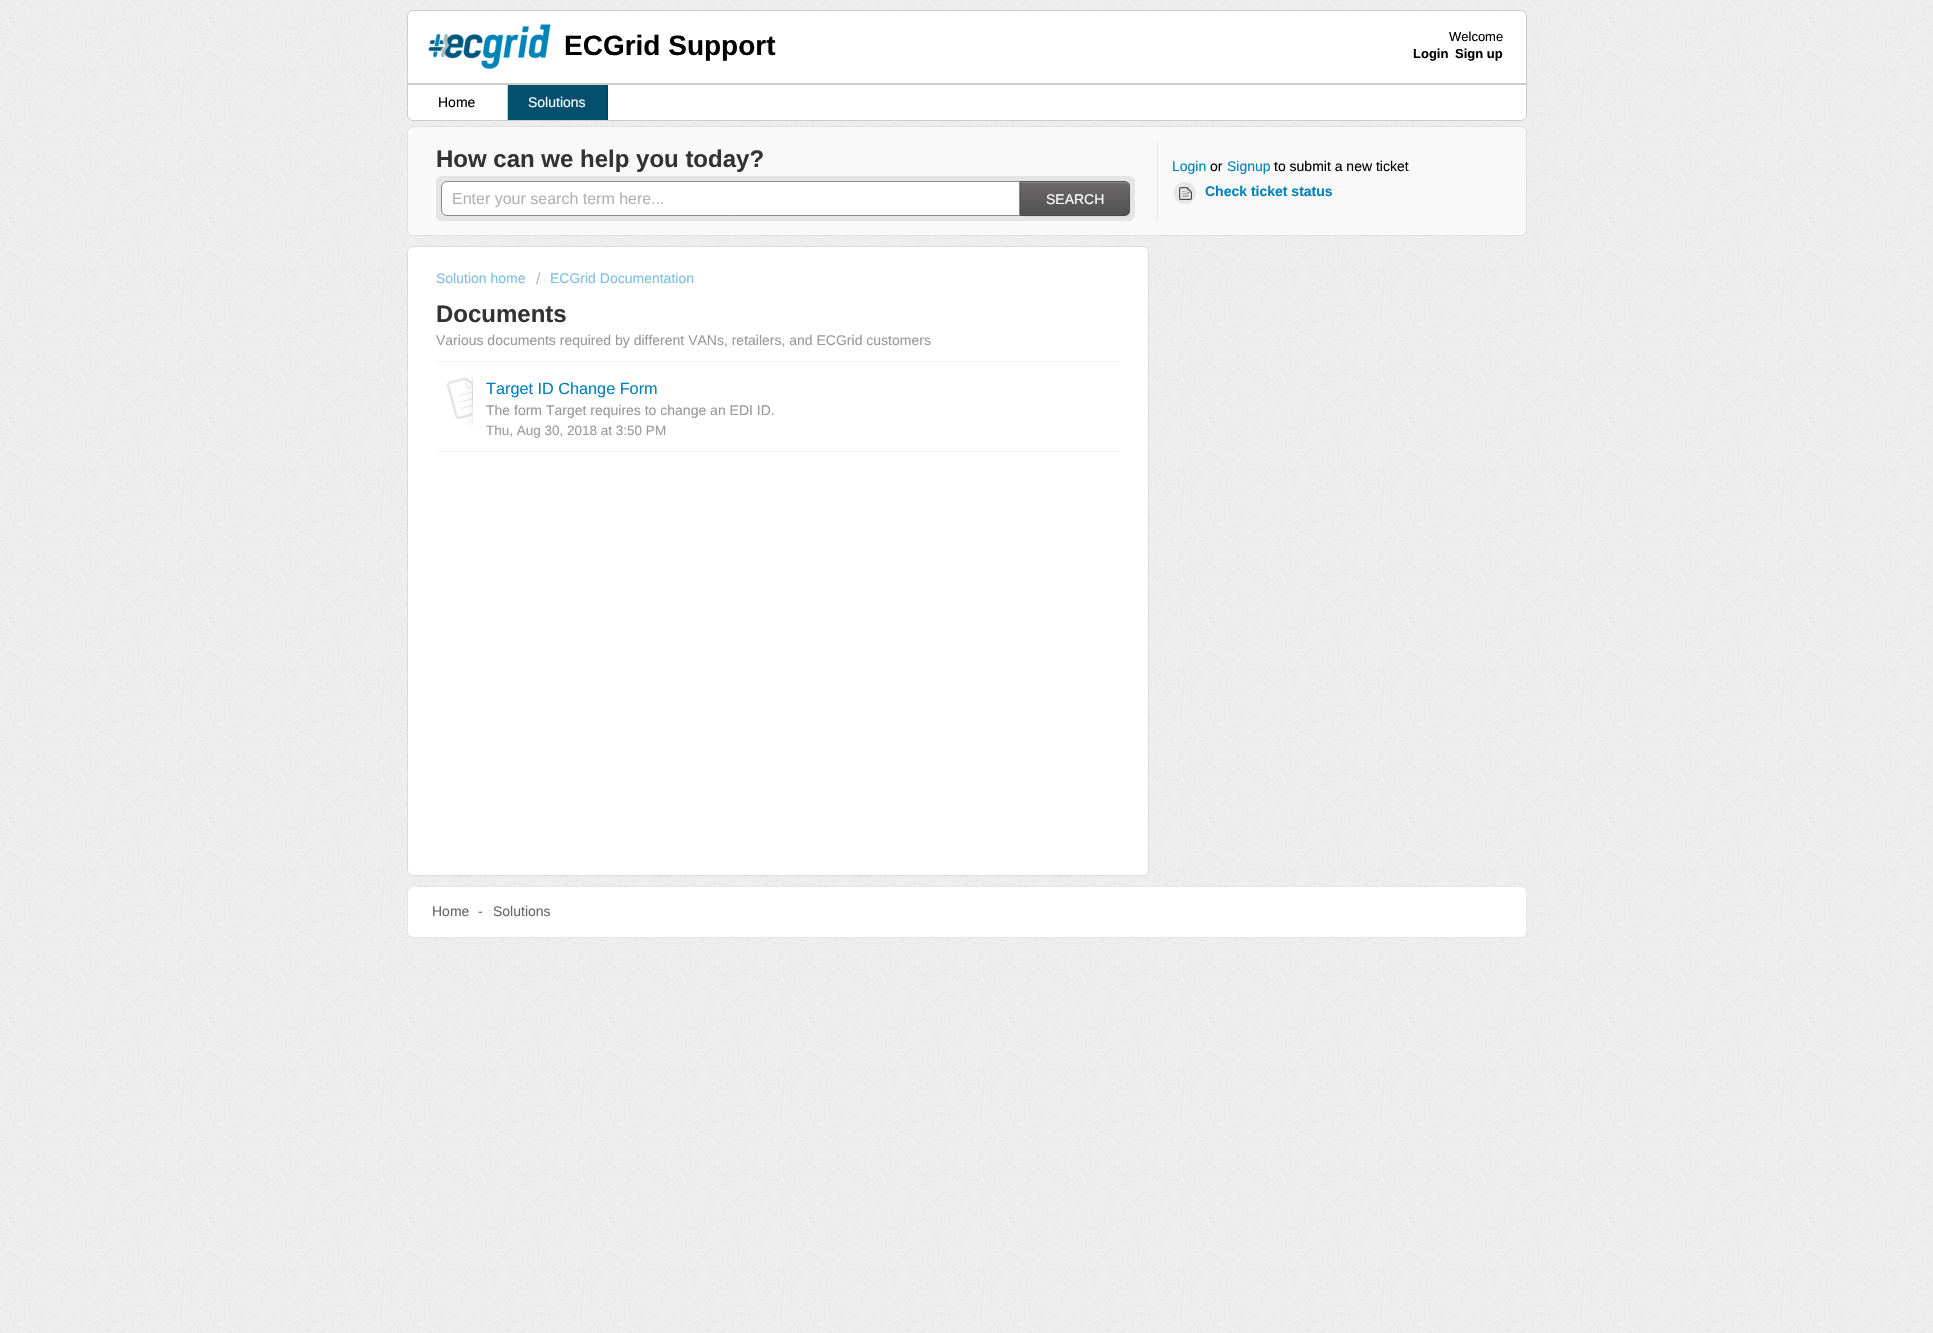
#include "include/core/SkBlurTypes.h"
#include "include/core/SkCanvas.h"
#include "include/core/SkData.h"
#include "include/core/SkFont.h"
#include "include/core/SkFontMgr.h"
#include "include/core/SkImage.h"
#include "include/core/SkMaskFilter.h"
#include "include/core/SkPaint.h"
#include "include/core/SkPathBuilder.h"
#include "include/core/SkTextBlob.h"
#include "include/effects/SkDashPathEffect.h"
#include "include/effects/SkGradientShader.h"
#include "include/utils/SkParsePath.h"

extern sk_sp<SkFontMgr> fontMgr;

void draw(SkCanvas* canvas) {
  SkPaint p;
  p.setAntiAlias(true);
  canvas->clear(SkColorSetRGB(239, 239, 239));
  canvas->drawImageRect(SkImages::DeferredFromEncodedData(SkData::MakeFromFileName("images/1.png")), SkRect::MakeLTRB(0, 0, 1933, 1333), SkSamplingOptions());
  p.setColor(SK_ColorWHITE);
  canvas->drawPath(SkPathBuilder().moveTo(413, 10).lineTo(1521, 10).cubicTo(1524.5f, 10, 1527, 12.5f, 1527, 16).lineTo(1527, 84).lineTo(407, 84).lineTo(407, 16).cubicTo(407, 12.5f, 409.5f, 10, 413, 10).close().detach(), p);
  p.setStyle(SkPaint::kStroke_Style);
  p.setStrokeWidth(1);
  p.setColor(SkColorSetARGB(51, 0, 0, 0));
  canvas->drawPath(SkPathBuilder().moveTo(413, 10.5f).lineTo(1521, 10.5f).cubicTo(1524, 10.5f, 1526.5f, 13, 1526.5f, 16).lineTo(1526.5f, 83.5f).lineTo(407.5f, 83.5f).lineTo(407.5f, 16).cubicTo(407.5f, 13, 410, 10.5f, 413, 10.5f).close().detach(), p);
  canvas->drawImageRect(SkImages::DeferredFromEncodedData(SkData::MakeFromFileName("images/2.png")), SkRect::MakeLTRB(428, 24, 551, 70), SkSamplingOptions());
  p.setStyle(SkPaint::kFill_Style);
  p.setColor(SK_ColorWHITE);
  canvas->drawPath(SkPathBuilder().moveTo(407, 84).lineTo(1527, 84).lineTo(1527, 115).cubicTo(1527, 118.5f, 1524.5f, 121, 1521, 121).lineTo(413, 121).cubicTo(409.5f, 121, 407, 118.5f, 407, 115).close().detach(), p);
  p.setStyle(SkPaint::kStroke_Style);
  p.setColor(SkColorSetARGB(51, 0, 0, 0));
  canvas->drawPath(SkPathBuilder().moveTo(407.5f, 84.5f).lineTo(1526.5f, 84.5f).lineTo(1526.5f, 115).cubicTo(1526.5f, 118, 1524, 120.5f, 1521, 120.5f).lineTo(413, 120.5f).cubicTo(410, 120.5f, 407.5f, 118, 407.5f, 115).close().detach(), p);
  p.setStyle(SkPaint::kFill_Style);
  p.setColor(SkColorSetRGB(204, 204, 204));
  canvas->drawRect(SkRect::MakeLTRB(507, 85, 508, 120), p);
  p.setColor(SkColorSetRGB(1, 79, 110));
  canvas->drawRect(SkRect::MakeLTRB(508, 85, 607, 120), p);
  p.setColor(SkColorSetRGB(1, 63, 88));
  canvas->drawRect(SkRect::MakeLTRB(607, 85, 608, 120), p);
  p.setColor(SkColorSetRGB(249, 249, 249));
  canvas->drawRoundRect(SkRect::MakeLTRB(407.5f, 126.5f, 1526.5f, 235.5f), 5.5f, 5.5f, p);
  p.setStyle(SkPaint::kStroke_Style);
  p.setColor(SkColorSetRGB(224, 224, 224));
  canvas->drawRoundRect(SkRect::MakeLTRB(407.5f, 126.5f, 1526.5f, 235.5f), 5.5f, 5.5f, p);
  p.setStyle(SkPaint::kFill_Style);
  p.setColor(SkColorSetRGB(229, 229, 229));
  canvas->drawRect(SkRect::MakeLTRB(1157, 141, 1158, 221), p);
  canvas->drawRoundRect(SkRect::MakeLTRB(436, 176, 1135, 221), 6, 6, p);
  p.setColor(SK_ColorWHITE);
  canvas->drawPath(SkPathBuilder().moveTo(447, 181.5f).lineTo(1019.5f, 181.5f).lineTo(1019.5f, 215.5f).lineTo(447, 215.5f).cubicTo(444, 215.5f, 441.5f, 213, 441.5f, 210).lineTo(441.5f, 187).cubicTo(441.5f, 184, 444, 181.5f, 447, 181.5f).close().detach(), p);
  p.setStyle(SkPaint::kStroke_Style);
  p.setColor(SkColorSetRGB(140, 140, 140));
  canvas->drawPath(SkPathBuilder().moveTo(447, 181.5f).lineTo(1019.5f, 181.5f).lineTo(1019.5f, 215.5f).lineTo(447, 215.5f).cubicTo(444, 215.5f, 441.5f, 213, 441.5f, 210).lineTo(441.5f, 187).cubicTo(441.5f, 184, 444, 181.5f, 447, 181.5f).close().detach(), p);
  p.setStyle(SkPaint::kFill_Style);
  p.setColor(SkColorSetARGB(13, 0, 0, 0));
  p.setMaskFilter(SkMaskFilter::MakeBlur(kNormal_SkBlurStyle, 1));
  canvas->drawRoundRect(SkRect::MakeLTRB(1020, 182, 1130, 217), 6, 6, p);
  p.setMaskFilter(nullptr);
  p.setColor(SkColorSetRGB(98, 96, 96));
  canvas->drawPath(SkPathBuilder().moveTo(1020, 181).lineTo(1124, 181).cubicTo(1127.5f, 181, 1130, 183.5f, 1130, 187).lineTo(1130, 210).cubicTo(1130, 213.5f, 1127.5f, 216, 1124, 216).lineTo(1020, 216).close().detach(), p);
  canvas->save();
  canvas->clipPath(SkPathBuilder().moveTo(1020, 181).lineTo(1124, 181).cubicTo(1127.5f, 181, 1130, 183.5f, 1130, 187).lineTo(1130, 210).cubicTo(1130, 213.5f, 1127.5f, 216, 1124, 216).lineTo(1020, 216).close().detach(), true);
  {
    const SkColor colors[] = {SkColorSetRGB(108, 106, 106), SkColorSetRGB(82, 81, 81)};
    const float stops[] = {0, 1};
    const SkPoint ends[] = {{1075, 182}, {1075, 215}};
    p.setShader(SkGradientShader::MakeLinear(ends, colors, stops, 2, SkTileMode::kClamp));
    p.setAlpha(255);
  }
  canvas->drawRect(SkRect::MakeLTRB(1020, 182, 1130, 215), p);
  canvas->restore();
  p.setShader(nullptr);
  p.setColor(SkColorSetRGB(137, 136, 136));
  canvas->drawPath(SkPathBuilder().moveTo(1021, 183).lineTo(1124, 183).cubicTo(1127, 183, 1129, 185, 1129, 188).lineTo(1129, 187).cubicTo(1129, 184, 1127, 182, 1124, 182).lineTo(1021, 182).close().detach(), p);
  p.setColor(SkColorSetARGB(26, 0, 0, 0));
  canvas->drawPath(SkPathBuilder().moveTo(1020, 181).lineTo(1021, 182).lineTo(1125, 182).lineTo(1128, 183).cubicTo(1127, 182, 1126, 181, 1124, 181).close().detach(), p);
  canvas->drawPath(SkPathBuilder().moveTo(1130, 210).lineTo(1130, 187).cubicTo(1130, 185.5f, 1129, 184, 1128, 183).lineTo(1127.5f, 183.5f).cubicTo(1128.5f, 184, 1129, 185.5f, 1129, 187).lineTo(1129, 210).cubicTo(1129, 211.5f, 1128.5f, 213, 1127.5f, 213.5f).lineTo(1128, 214).cubicTo(1129, 213, 1130, 211.5f, 1130, 210).close().detach(), p);
  p.setColor(SkColorSetARGB(64, 0, 0, 0));
  canvas->drawPath(SkPathBuilder().moveTo(1124, 216).cubicTo(1126, 216, 1127, 215, 1128, 214).lineTo(1125, 215).lineTo(1021, 215).lineTo(1020, 216).close().detach(), p);
  p.setColor(SkColorSetARGB(26, 0, 0, 0));
  canvas->drawPath(SkPathBuilder().moveTo(1020, 181).lineTo(1020, 216).lineTo(1021, 215).lineTo(1021, 182).close().detach(), p);
  p.setColor(SkColorSetRGB(229, 229, 229));
  canvas->drawCircle(1185, 193, 11, p);
  canvas->drawImageRect(SkImages::DeferredFromEncodedData(SkData::MakeFromFileName("images/3.png")), SkRect::MakeLTRB(1178, 186, 1192, 200), SkSamplingOptions());
  p.setColor(SK_ColorWHITE);
  canvas->drawRoundRect(SkRect::MakeLTRB(407.5f, 246.5f, 1148.5f, 875.5f), 5.5f, 5.5f, p);
  p.setStyle(SkPaint::kStroke_Style);
  p.setColor(SkColorSetRGB(220, 220, 220));
  canvas->drawRoundRect(SkRect::MakeLTRB(407.5f, 246.5f, 1148.5f, 875.5f), 5.5f, 5.5f, p);
  p.setStyle(SkPaint::kFill_Style);
  p.setColor(SkColorSetRGB(243, 243, 243));
  canvas->drawRect(SkRect::MakeLTRB(436, 451, 1120, 452), p);
  canvas->drawRect(SkRect::MakeLTRB(436, 361, 1120, 362), p);
  canvas->drawImageRect(SkImages::DeferredFromEncodedData(SkData::MakeFromFileName("images/4.png")), SkRect::MakeLTRB(447, 374, 473, 428), SkSamplingOptions());
  p.setColor(SK_ColorWHITE);
  canvas->drawRoundRect(SkRect::MakeLTRB(407.5f, 886.5f, 1526.5f, 937.5f), 5.5f, 5.5f, p);
  p.setStyle(SkPaint::kStroke_Style);
  p.setColor(SkColorSetRGB(230, 230, 230));
  canvas->drawRoundRect(SkRect::MakeLTRB(407.5f, 886.5f, 1526.5f, 937.5f), 5.5f, 5.5f, p);
  SkFont font1(fontMgr->matchFamilyStyle("Liberation Sans", SkFontStyle::Bold()), 28);
  font1.setSubpixel(true);
  p.setStyle(SkPaint::kFill_Style);
  p.setColor(SK_ColorBLACK);
  canvas->drawString("ECGrid Support", 564, 55, font1, p);
  SkFont font2(fontMgr->matchFamilyStyle("Liberation Sans", SkFontStyle::Normal()), 13);
  font2.setSubpixel(true);
  canvas->drawString("Welcome", 1449, 41, font2, p);
  SkFont font3(fontMgr->matchFamilyStyle("Liberation Sans", SkFontStyle::Bold()), 13);
  font3.setSubpixel(true);
  canvas->drawString("Login", 1413, 58, font3, p);
  canvas->drawString("Sign up", 1455, 58, font3, p);
  SkFont font4(fontMgr->matchFamilyStyle("Liberation Sans", SkFontStyle::Normal()), 14);
  font4.setSubpixel(true);
  canvas->drawString("Home", 438, 107, font4, p);
  p.setColor(SK_ColorWHITE);
  canvas->drawString("Solutions", 528, 107, font4, p);
  SkFont font5(fontMgr->matchFamilyStyle("Liberation Sans", SkFontStyle::Bold()), 24);
  font5.setSubpixel(true);
  p.setColor(SkColorSetRGB(51, 51, 51));
  canvas->drawString("How can we help you today?", 436, 167, font5, p);
  SkFont font6(fontMgr->matchFamilyStyle("Liberation Sans", SkFontStyle::Normal()), 16);
  font6.setSubpixel(true);
  p.setColor(SkColorSetRGB(178, 178, 178));
  canvas->drawString("Enter your search term here...", 452, 204, font6, p);
  p.setColor(SK_ColorWHITE);
  canvas->drawString("SEARCH", 1046, 204, font4, p);
  p.setColor(SkColorSetRGB(0, 128, 188));
  canvas->drawString("Login", 1172, 171, font4, p);
  p.setColor(SK_ColorBLACK);
  canvas->drawString("or", 1210, 171, font4, p);
  p.setColor(SkColorSetRGB(0, 128, 188));
  canvas->drawString("Signup", 1227, 171, font4, p);
  p.setColor(SK_ColorBLACK);
  canvas->drawString("to submit a new ticket", 1274, 171, font4, p);
  SkFont font7(fontMgr->matchFamilyStyle("Liberation Sans", SkFontStyle::Bold()), 14);
  font7.setSubpixel(true);
  p.setColor(SkColorSetRGB(0, 128, 188));
  canvas->drawString("Check ticket status", 1205, 196, font7, p);
  p.setColor(SkColorSetRGB(128, 192, 222));
  canvas->drawString("Solution home", 436, 283, font4, p);
  p.setColor(SkColorSetRGB(187, 187, 187));
  canvas->drawString("/", 536, 284, font6, p);
  p.setColor(SkColorSetRGB(128, 192, 222));
  canvas->drawString("ECGrid Documentation", 550, 283, font4, p);
  p.setColor(SkColorSetRGB(51, 51, 51));
  canvas->drawString("Documents", 436, 322, font5, p);
  p.setColor(SkColorSetRGB(153, 153, 153));
  canvas->drawString("Various documents required by different VANs, retailers, and ECGrid customers", 436, 345, font4, p);
  SkFont font8(fontMgr->matchFamilyStyle("Liberation Sans", SkFontStyle::Normal()), 16.25f);
  font8.setSubpixel(true);
  p.setColor(SkColorSetRGB(0, 128, 188));
  canvas->drawString("Target ID Change Form", 486, 394, font8, p);
  p.setColor(SkColorSetRGB(153, 153, 153));
  canvas->drawString("The form Target requires to change an EDI ID.", 486, 415, font4, p);
  SkFont font9(fontMgr->matchFamilyStyle("Liberation Sans", SkFontStyle::Normal()), 13.5f);
  font9.setSubpixel(true);
  canvas->drawString("Thu, Aug 30, 2018 at 3:50 PM", 486, 435, font9, p);
  p.setColor(SkColorSetRGB(102, 102, 102));
  canvas->drawString("Home", 432, 916, font4, p);
  canvas->drawString("-", 478, 916, font4, p);
  canvas->drawString("Solutions", 493, 916, font4, p);
}
